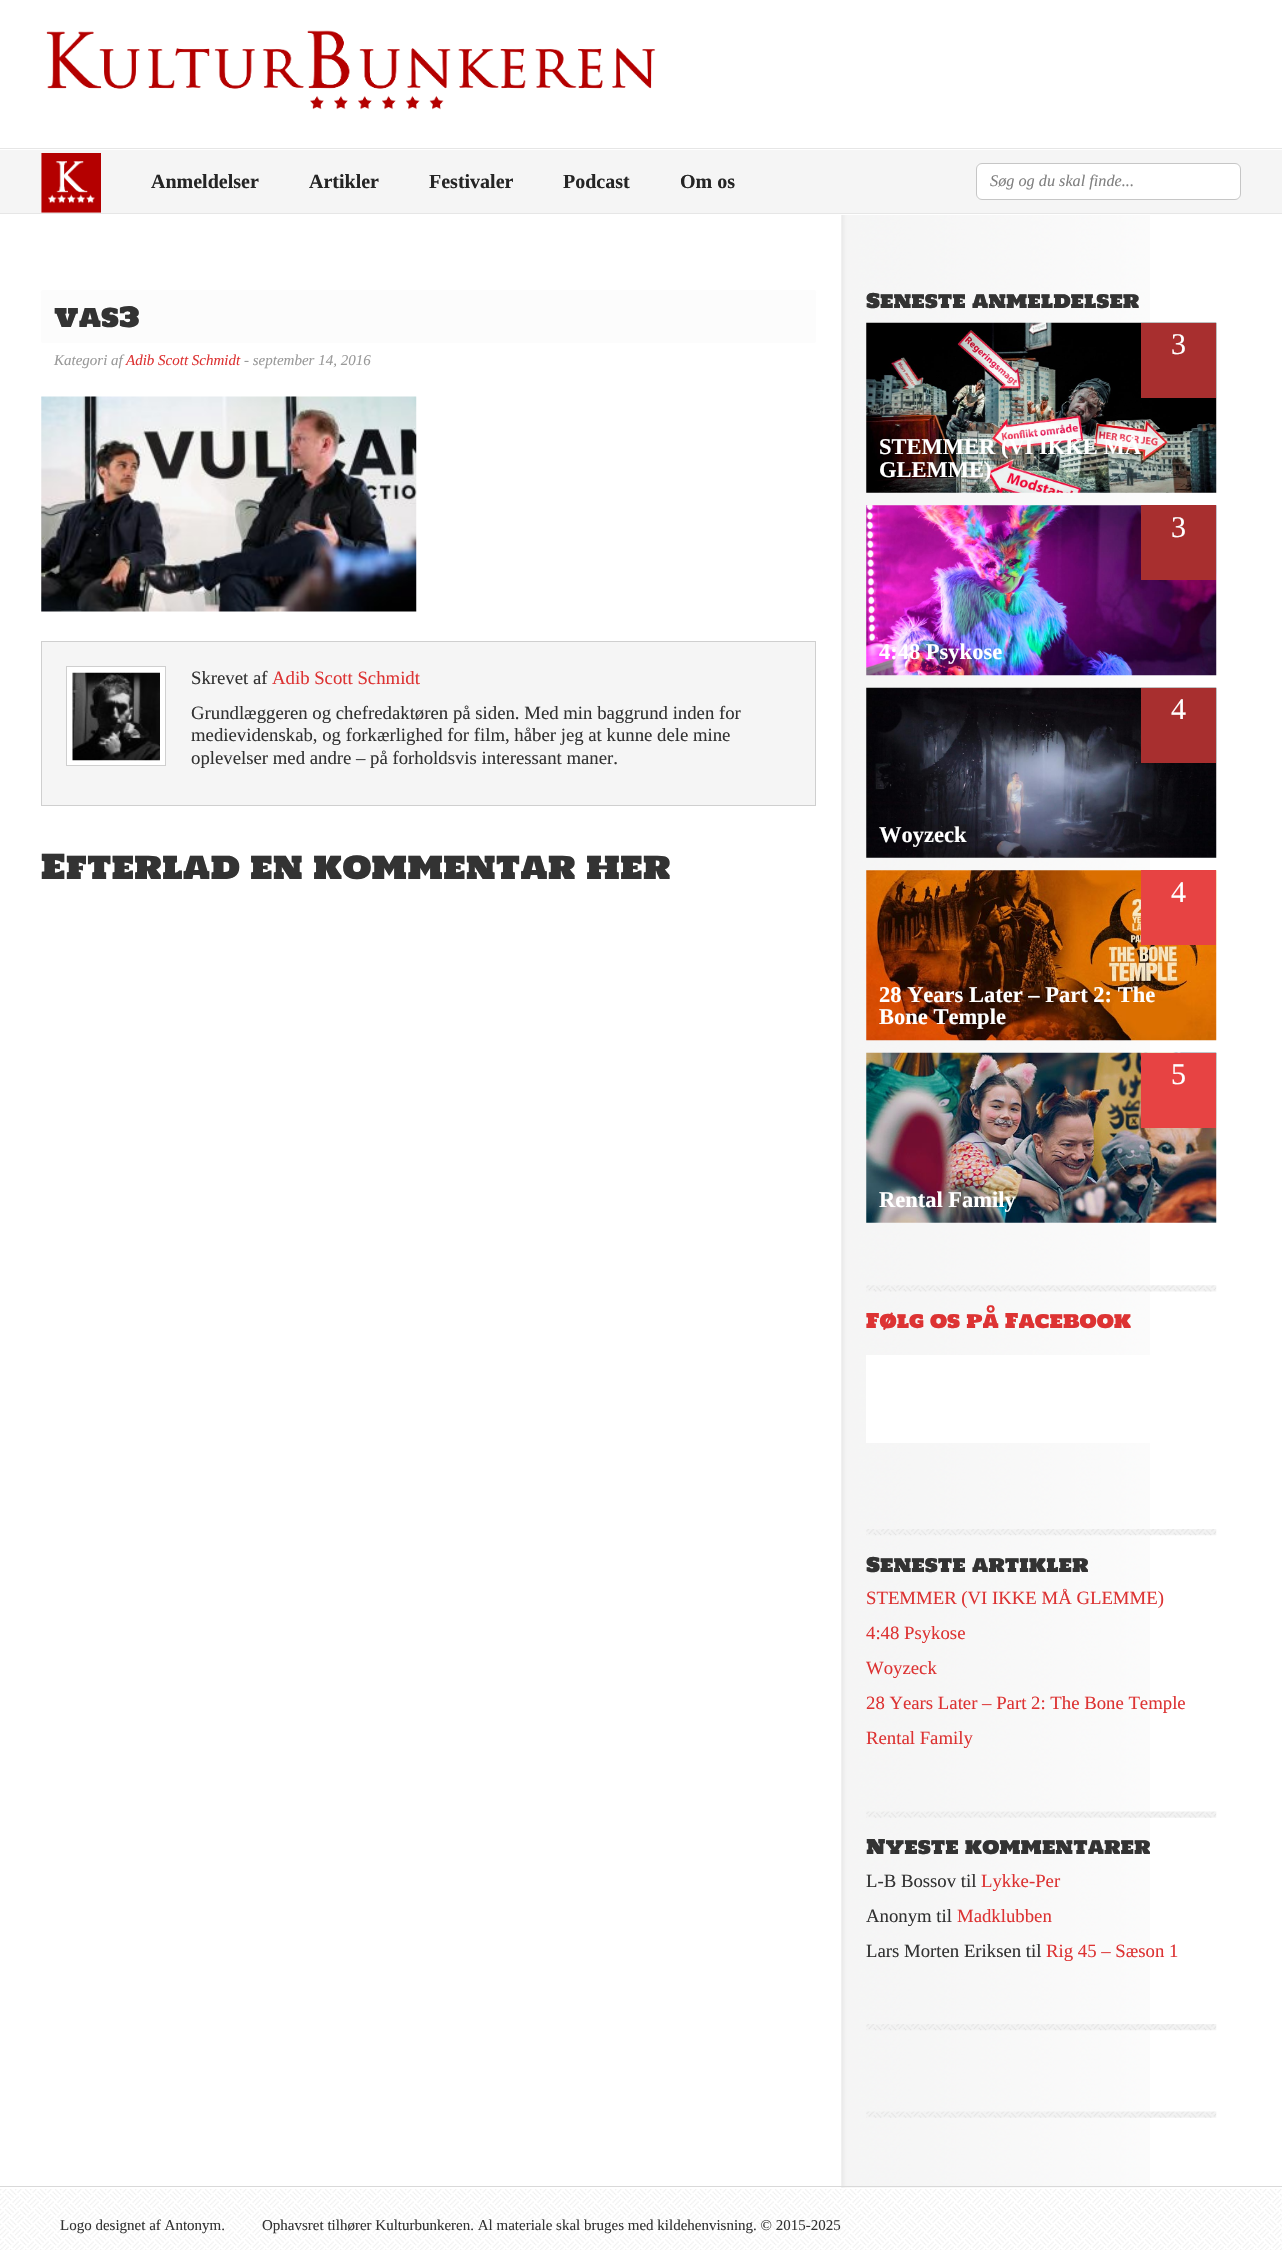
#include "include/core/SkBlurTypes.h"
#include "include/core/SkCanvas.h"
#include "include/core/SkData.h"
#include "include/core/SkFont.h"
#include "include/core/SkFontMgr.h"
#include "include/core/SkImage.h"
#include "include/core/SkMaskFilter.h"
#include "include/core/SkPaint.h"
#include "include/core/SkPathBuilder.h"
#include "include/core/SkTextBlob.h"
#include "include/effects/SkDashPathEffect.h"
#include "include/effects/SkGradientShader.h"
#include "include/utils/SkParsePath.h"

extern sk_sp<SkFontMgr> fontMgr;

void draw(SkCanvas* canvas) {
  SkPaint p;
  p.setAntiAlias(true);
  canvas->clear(SK_ColorWHITE);
  canvas->drawImageRect(SkImages::DeferredFromEncodedData(SkData::MakeFromFileName("images/1.png")), SkRect::MakeLTRB(0, 2189, 1282, 2250), SkSamplingOptions());
  p.setColor(SkColorSetRGB(230, 230, 230));
  canvas->drawRect(SkRect::MakeLTRB(0, 148, 1282, 149), p);
  canvas->drawImageRect(SkImages::DeferredFromEncodedData(SkData::MakeFromFileName("images/2.png")), SkRect::MakeLTRB(46, 30, 656, 110), SkSamplingOptions());
  p.setColor(SkColorSetRGB(245, 245, 245));
  canvas->drawRect(SkRect::MakeLTRB(0, 150, 1282, 213), p);
  p.setColor(SkColorSetRGB(230, 230, 230));
  canvas->drawRect(SkRect::MakeLTRB(0, 213, 1282, 214), p);
  canvas->drawImageRect(SkImages::DeferredFromEncodedData(SkData::MakeFromFileName("images/3.png")), SkRect::MakeLTRB(41, 153, 101, 213), SkSamplingOptions());
  p.setColor(SK_ColorWHITE);
  canvas->drawRoundRect(SkRect::MakeLTRB(976.5f, 163.5f, 1240.5f, 199.5f), 5.5f, 5.5f, p);
  p.setStyle(SkPaint::kStroke_Style);
  p.setStrokeWidth(1);
  p.setColor(SkColorSetRGB(198, 198, 198));
  canvas->drawRoundRect(SkRect::MakeLTRB(976.5f, 163.5f, 1240.5f, 199.5f), 5.5f, 5.5f, p);
  canvas->drawImageRect(SkImages::DeferredFromEncodedData(SkData::MakeFromFileName("images/4.png")), SkRect::MakeLTRB(841, 215, 1150, 2188), SkSamplingOptions());
  p.setStyle(SkPaint::kFill_Style);
  p.setColor(SkColorSetRGB(217, 217, 217));
  canvas->drawRect(SkRect::MakeLTRB(0, 2186, 1282, 2187), p);
  p.setColor(SkColorSetRGB(252, 252, 252));
  canvas->drawRoundRect(SkRect::MakeLTRB(41, 290, 816, 343), 2.5f, 2.5f, p);
  canvas->drawImageRect(SkImages::DeferredFromEncodedData(SkData::MakeFromFileName("images/5.png")), SkRect::MakeLTRB(41, 396, 417, 612), SkSamplingOptions());
  p.setColor(SkColorSetRGB(245, 245, 245));
  canvas->drawRect(SkRect::MakeLTRB(41.5f, 641.5f, 815.5f, 805.5f), p);
  p.setStyle(SkPaint::kStroke_Style);
  p.setColor(SkColorSetRGB(207, 207, 207));
  canvas->drawRect(SkRect::MakeLTRB(41.5f, 641.5f, 815.5f, 805.5f), p);
  p.setStyle(SkPaint::kFill_Style);
  p.setColor(SK_ColorWHITE);
  canvas->drawRect(SkRect::MakeLTRB(66.5f, 666.5f, 165.5f, 765.5f), p);
  p.setStyle(SkPaint::kStroke_Style);
  p.setColor(SkColorSetRGB(207, 207, 207));
  canvas->drawRect(SkRect::MakeLTRB(66.5f, 666.5f, 165.5f, 765.5f), p);
  canvas->drawImageRect(SkImages::DeferredFromEncodedData(SkData::MakeFromFileName("images/6.png")), SkRect::MakeLTRB(72, 672, 160, 761), SkSamplingOptions());
  canvas->drawImageRect(SkImages::DeferredFromEncodedData(SkData::MakeFromFileName("images/7.png")), SkRect::MakeLTRB(866, 322, 1217, 493), SkSamplingOptions());
  p.setStyle(SkPaint::kFill_Style);
  p.setColor(SkColorSetRGB(168, 47, 47));
  canvas->drawRect(SkRect::MakeLTRB(1141, 323, 1216, 398), p);
  canvas->drawImageRect(SkImages::DeferredFromEncodedData(SkData::MakeFromFileName("images/8.png")), SkRect::MakeLTRB(866, 505, 1217, 676), SkSamplingOptions());
  canvas->drawRect(SkRect::MakeLTRB(1141, 505, 1216, 580), p);
  canvas->drawImageRect(SkImages::DeferredFromEncodedData(SkData::MakeFromFileName("images/9.png")), SkRect::MakeLTRB(866, 687, 1217, 858), SkSamplingOptions());
  canvas->drawRect(SkRect::MakeLTRB(1141, 688, 1216, 763), p);
  canvas->drawImageRect(SkImages::DeferredFromEncodedData(SkData::MakeFromFileName("images/10.png")), SkRect::MakeLTRB(866, 870, 1217, 1041), SkSamplingOptions());
  p.setColor(SkColorSetRGB(231, 67, 67));
  canvas->drawRect(SkRect::MakeLTRB(1141, 870, 1216, 945), p);
  canvas->drawImageRect(SkImages::DeferredFromEncodedData(SkData::MakeFromFileName("images/11.png")), SkRect::MakeLTRB(866, 1052, 1217, 1223), SkSamplingOptions());
  canvas->drawRect(SkRect::MakeLTRB(1141, 1053, 1216, 1128), p);
  canvas->drawImageRect(SkImages::DeferredFromEncodedData(SkData::MakeFromFileName("images/12.png")), SkRect::MakeLTRB(866, 1285, 1217, 1292), SkSamplingOptions());
  p.setColor(SK_ColorWHITE);
  canvas->drawRect(SkRect::MakeLTRB(866, 1355, 1150, 1443), p);
  canvas->drawImageRect(SkImages::DeferredFromEncodedData(SkData::MakeFromFileName("images/13.png")), SkRect::MakeLTRB(866, 1529, 1217, 1536), SkSamplingOptions());
  canvas->drawImageRect(SkImages::DeferredFromEncodedData(SkData::MakeFromFileName("images/14.png")), SkRect::MakeLTRB(866, 1811, 1217, 1818), SkSamplingOptions());
  canvas->drawImageRect(SkImages::DeferredFromEncodedData(SkData::MakeFromFileName("images/15.png")), SkRect::MakeLTRB(866, 2024, 1217, 2031), SkSamplingOptions());
  canvas->drawImageRect(SkImages::DeferredFromEncodedData(SkData::MakeFromFileName("images/14.png")), SkRect::MakeLTRB(866, 2111, 1217, 2118), SkSamplingOptions());
  SkFont font1(fontMgr->matchFamilyStyle("Liberation Serif", SkFontStyle::Bold()), 20);
  font1.setSubpixel(true);
  p.setColor(SkColorSetRGB(37, 37, 37));
  canvas->drawString("Anmeldelser", 151, 188, font1, p);
  canvas->drawString("Artikler", 309, 188, font1, p);
  canvas->drawString("Festivaler", 429, 188, font1, p);
  canvas->drawString("Podcast", 563, 188, font1, p);
  canvas->drawString("Om os", 680, 188, font1, p);
  SkFont font2(fontMgr->matchFamilyStyle("Liberation Serif", SkFontStyle::Italic()), 16.25f);
  font2.setSubpixel(true);
  p.setColor(SkColorSetRGB(128, 128, 128));
  canvas->drawString("Søg og du skal finde...", 990, 186, font2, p);
  SkFont font3(fontMgr->matchFamilyStyle("Holtwood One SC", SkFontStyle::Normal()), 27.5f);
  font3.setSubpixel(true);
  p.setColor(SkColorSetRGB(51, 51, 51));
  canvas->drawString("vas3", 54, 327, font3, p);
  SkFont font4(fontMgr->matchFamilyStyle("Liberation Serif", SkFontStyle::Italic()), 15);
  font4.setSubpixel(true);
  p.setColor(SkColorSetRGB(153, 153, 153));
  canvas->drawString("Kategori af", 54, 365, font4, p);
  p.setColor(SkColorSetRGB(221, 51, 51));
  canvas->drawString("Adib Scott Schmidt", 126, 365, font4, p);
  p.setColor(SkColorSetRGB(153, 153, 153));
  canvas->drawString("- september 14, 2016", 244, 365, font4, p);
  SkFont font5(fontMgr->matchFamilyStyle("Liberation Serif", SkFontStyle::Normal()), 18.75f);
  font5.setSubpixel(true);
  p.setColor(SkColorSetRGB(51, 51, 51));
  canvas->drawString("Skrevet af", 191, 684, font5, p);
  p.setColor(SkColorSetRGB(221, 51, 51));
  canvas->drawString("Adib Scott Schmidt", 272, 684, font5, p);
  p.setColor(SkColorSetRGB(51, 51, 51));
  canvas->drawString("Grundlæggeren og chefredaktøren på siden. Med min baggrund inden for", 191, 719, font5, p);
  canvas->drawString("medievidenskab, og forkærlighed for film, håber jeg at kunne dele mine", 191, 741, font5, p);
  canvas->drawString("oplevelser med andre – på forholdsvis interessant maner.", 191, 764, font5, p);
  SkFont font6(fontMgr->matchFamilyStyle("Holtwood One SC", SkFontStyle::Normal()), 33.75f);
  font6.setSubpixel(true);
  canvas->drawString("Efterlad en kommentar her", 41, 879, font6, p);
  SkFont font7(fontMgr->matchFamilyStyle("Holtwood One SC", SkFontStyle::Normal()), 20);
  font7.setSubpixel(true);
  canvas->drawString("Seneste anmeldelser", 866, 308, font7, p);
  SkFont font8(fontMgr->matchFamilyStyle("Liberation Serif", SkFontStyle::Normal()), 30);
  font8.setSubpixel(true);
  p.setColor(SK_ColorWHITE);
  canvas->drawString("3", 1171, 354, font8, p);
  SkFont font9(fontMgr->matchFamilyStyle("Liberation Serif", SkFontStyle::Bold()), 22.5f);
  font9.setSubpixel(true);
  canvas->drawString("STEMMER (VI IKKE MÅ", 879, 454, font9, p);
  canvas->drawString("GLEMME)", 879, 477, font9, p);
  canvas->drawString("3", 1171, 537, font8, p);
  canvas->drawString("4:48 Psykose", 879, 659, font9, p);
  canvas->drawString("4", 1171, 719, font8, p);
  canvas->drawString("Woyzeck", 879, 842, font9, p);
  canvas->drawString("4", 1171, 902, font8, p);
  canvas->drawString("28 Years Later – Part 2: The", 879, 1002, font9, p);
  canvas->drawString("Bone Temple", 879, 1024, font9, p);
  canvas->drawString("5", 1171, 1084, font8, p);
  canvas->drawString("Rental Family", 879, 1207, font9, p);
  p.setColor(SkColorSetRGB(221, 51, 51));
  canvas->drawString("Følg os på Facebook", 866, 1328, font7, p);
  p.setColor(SkColorSetRGB(51, 51, 51));
  canvas->drawString("Seneste artikler", 866, 1572, font7, p);
  p.setColor(SkColorSetRGB(221, 51, 51));
  canvas->drawString("STEMMER (VI IKKE MÅ GLEMME)", 866, 1604, font5, p);
  canvas->drawString("4:48 Psykose", 866, 1639, font5, p);
  canvas->drawString("Woyzeck", 866, 1674, font5, p);
  canvas->drawString("28 Years Later – Part 2: The Bone Temple", 866, 1709, font5, p);
  canvas->drawString("Rental Family", 866, 1744, font5, p);
  p.setColor(SkColorSetRGB(51, 51, 51));
  canvas->drawString("Nyeste kommentarer", 866, 1854, font7, p);
  canvas->drawString("L-B Bossov til", 866, 1887, font5, p);
  p.setColor(SkColorSetRGB(221, 51, 51));
  canvas->drawString("Lykke-Per", 981, 1887, font5, p);
  p.setColor(SkColorSetRGB(51, 51, 51));
  canvas->drawString("Anonym til", 866, 1922, font5, p);
  p.setColor(SkColorSetRGB(221, 51, 51));
  canvas->drawString("Madklubben", 957, 1922, font5, p);
  p.setColor(SkColorSetRGB(51, 51, 51));
  canvas->drawString("Lars Morten Eriksen til", 866, 1957, font5, p);
  p.setColor(SkColorSetRGB(221, 51, 51));
  canvas->drawString("Rig 45 – Sæson 1", 1046, 1957, font5, p);
  SkFont font10(fontMgr->matchFamilyStyle("Liberation Serif", SkFontStyle::Normal()), 15);
  font10.setSubpixel(true);
  p.setColor(SkColorSetRGB(51, 51, 51));
  canvas->drawString("Logo designet af Antonym.", 60, 2230, font10, p);
  canvas->drawString("Ophavsret tilhører Kulturbunkeren. Al materiale skal bruges med kildehenvisning. © 2015-2025", 262, 2230, font10, p);
}
